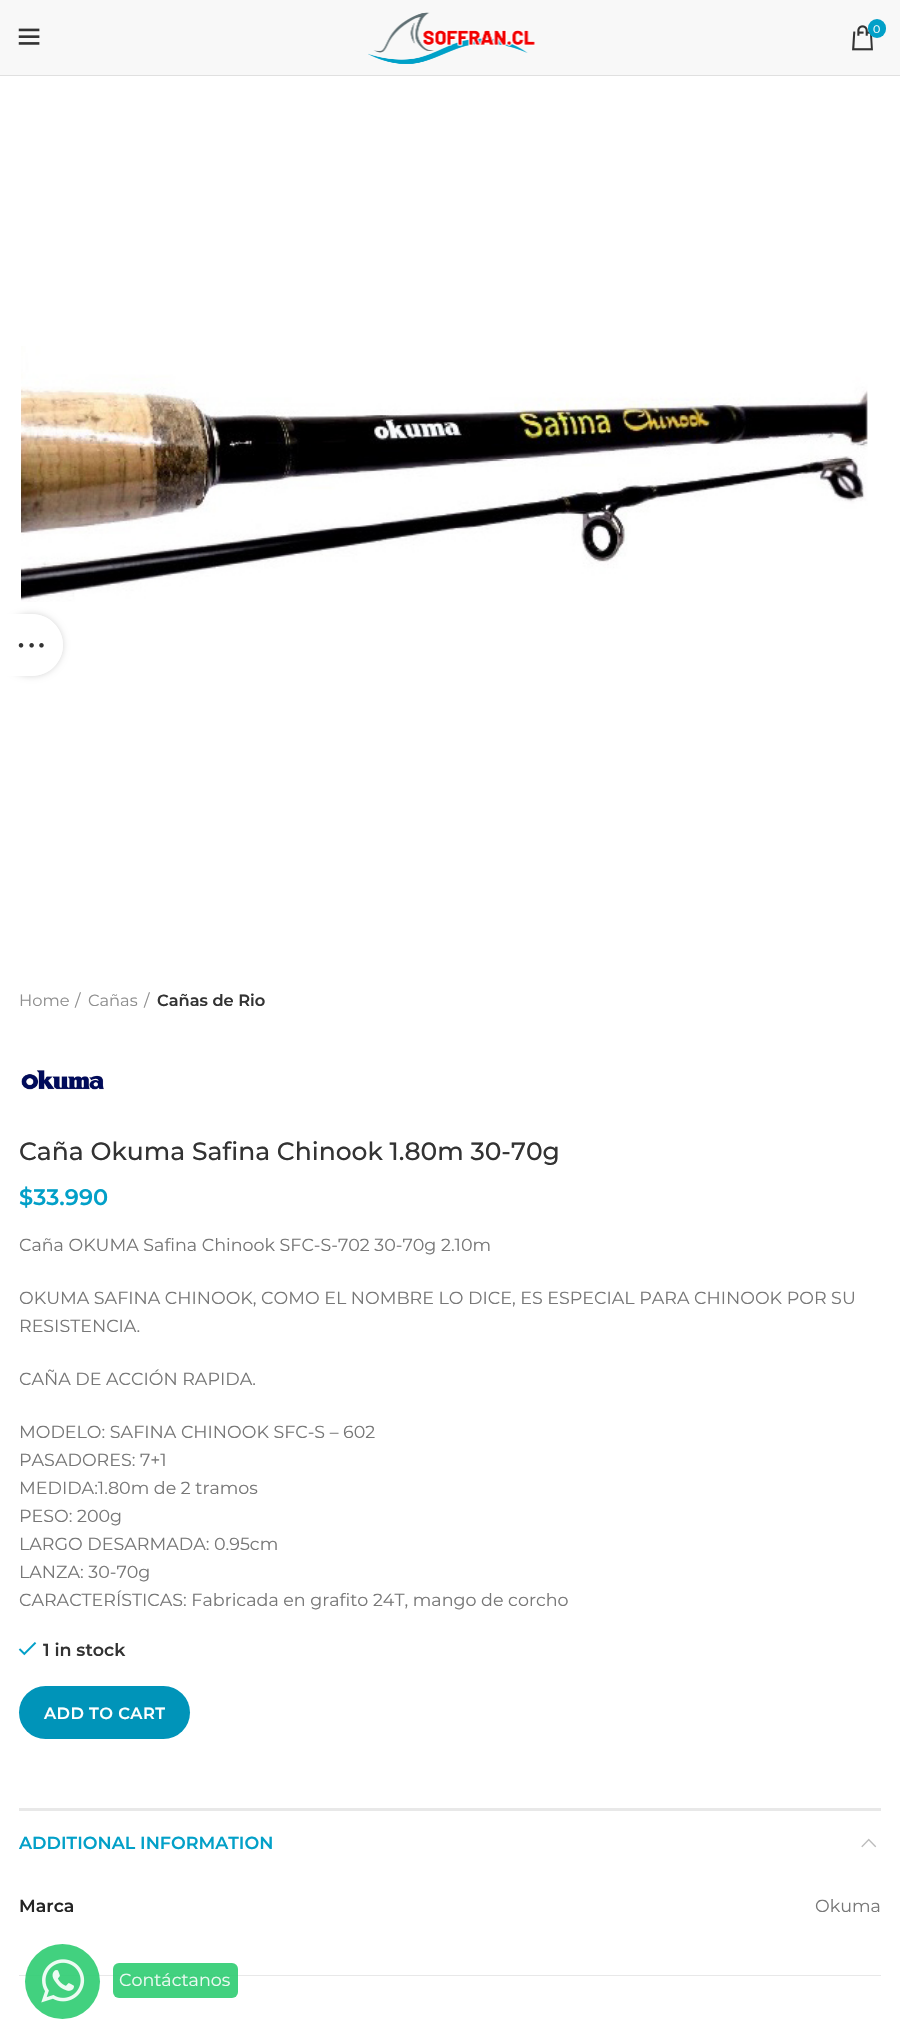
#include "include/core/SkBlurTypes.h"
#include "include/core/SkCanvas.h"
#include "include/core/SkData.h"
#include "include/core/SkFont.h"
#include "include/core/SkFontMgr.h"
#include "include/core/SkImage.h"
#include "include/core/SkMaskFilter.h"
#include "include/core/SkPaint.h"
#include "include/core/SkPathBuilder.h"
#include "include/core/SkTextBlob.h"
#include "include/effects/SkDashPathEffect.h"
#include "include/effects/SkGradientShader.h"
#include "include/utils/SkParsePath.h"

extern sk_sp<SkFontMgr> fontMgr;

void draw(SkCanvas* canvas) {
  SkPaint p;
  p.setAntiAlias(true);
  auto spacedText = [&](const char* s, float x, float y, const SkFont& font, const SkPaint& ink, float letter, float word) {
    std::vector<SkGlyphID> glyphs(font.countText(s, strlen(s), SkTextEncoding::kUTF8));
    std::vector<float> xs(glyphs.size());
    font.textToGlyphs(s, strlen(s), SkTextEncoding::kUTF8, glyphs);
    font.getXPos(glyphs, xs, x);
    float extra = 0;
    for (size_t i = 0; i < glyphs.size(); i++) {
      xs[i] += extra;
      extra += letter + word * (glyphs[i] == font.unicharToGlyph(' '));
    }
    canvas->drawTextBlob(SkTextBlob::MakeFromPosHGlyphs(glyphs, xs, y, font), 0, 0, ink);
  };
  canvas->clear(SK_ColorWHITE);
  p.setColor(SkColorSetRGB(248, 248, 248));
  canvas->drawRect(SkRect::MakeLTRB(0, 0, 900, 75), p);
  p.setColor(SkColorSetRGB(224, 224, 224));
  canvas->drawRect(SkRect::MakeLTRB(0, 75, 900, 76), p);
  canvas->drawImageRect(SkImages::DeferredFromEncodedData(SkData::MakeFromFileName("images/1.png")), SkRect::MakeLTRB(18, 28, 40, 45), SkSamplingOptions());
  canvas->drawImageRect(SkImages::DeferredFromEncodedData(SkData::MakeFromFileName("images/2.png")), SkRect::MakeLTRB(368, 12, 535, 64), SkSamplingOptions());
  canvas->drawImageRect(SkImages::DeferredFromEncodedData(SkData::MakeFromFileName("images/3.png")), SkRect::MakeLTRB(852, 25, 873, 51), SkSamplingOptions());
  p.setColor(SkColorSetRGB(2, 160, 200));
  canvas->drawRoundRect(SkRect::MakeLTRB(868, 19, 886, 38), 9, 9, p);
  canvas->drawImageRect(SkImages::DeferredFromEncodedData(SkData::MakeFromFileName("images/4.png")), SkRect::MakeLTRB(21, 346, 868, 602), SkSamplingOptions());
  canvas->drawImageRect(SkImages::DeferredFromEncodedData(SkData::MakeFromFileName("images/5.png")), SkRect::MakeLTRB(21, 1070, 104, 1090), SkSamplingOptions());
  canvas->drawImageRect(SkImages::DeferredFromEncodedData(SkData::MakeFromFileName("images/6.png")), SkRect::MakeLTRB(18, 1642, 37, 1656), SkSamplingOptions());
  p.setColor(SkColorSetRGB(0, 148, 185));
  canvas->drawRoundRect(SkRect::MakeLTRB(19, 1686, 190, 1739), 26.5f, 26.5f, p);
  p.setColor(SkColorSetRGB(232, 232, 232));
  canvas->drawRect(SkRect::MakeLTRB(19, 1808, 881, 1811), p);
  canvas->drawRect(SkRect::MakeLTRB(19, 1975, 881, 1976), p);
  canvas->drawImageRect(SkImages::DeferredFromEncodedData(SkData::MakeFromFileName("images/7.png")), SkRect::MakeLTRB(861, 1838, 877, 1848), SkSamplingOptions());
  canvas->save();
  canvas->clipPath(SkPathBuilder(SkPathFillType::kEvenOdd).moveTo(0, 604).lineTo(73, 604).lineTo(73, 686).lineTo(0, 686).close().moveTo(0, 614).lineTo(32, 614).cubicTo(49, 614, 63, 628, 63, 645).cubicTo(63, 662, 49, 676, 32, 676).lineTo(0, 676).close().detach(), true);
  p.setColor(SkColorSetARGB(43, 0, 0, 0));
  p.setMaskFilter(SkMaskFilter::MakeBlur(kNormal_SkBlurStyle, 3));
  canvas->drawRoundRect(SkRect::MakeLTRB(0, 614, 63, 676), 31, 31, p);
  p.setMaskFilter(nullptr);
  canvas->restore();
  p.setColor(SkColorSetARGB(230, 255, 255, 255));
  canvas->drawPath(SkPathBuilder().moveTo(0, 614).lineTo(32, 614).cubicTo(49, 614, 63, 628, 63, 645).cubicTo(63, 662, 49, 676, 32, 676).lineTo(0, 676).close().detach(), p);
  canvas->drawImageRect(SkImages::DeferredFromEncodedData(SkData::MakeFromFileName("images/8.png")), SkRect::MakeLTRB(18, 643, 44, 648), SkSamplingOptions());
  p.setColor(SkColorSetARGB(230, 46, 204, 113));
  canvas->drawCircle(62.5f, 1981.5f, 37.5f, p);
  canvas->drawImageRect(SkImages::DeferredFromEncodedData(SkData::MakeFromFileName("images/9.png")), SkRect::MakeLTRB(41, 1959, 85, 2003), SkSamplingOptions());
  canvas->drawRoundRect(SkRect::MakeLTRB(113, 1963, 238, 1998), 6, 6, p);
  SkFont font1(fontMgr->matchFamilyStyle("Montserrat", SkFontStyle::Normal()), 11);
  font1.setSubpixel(true);
  p.setColor(SK_ColorWHITE);
  canvas->drawString("0", 873, 33, font1, p);
  SkFont font2(fontMgr->matchFamilyStyle("Montserrat", SkFontStyle::Normal()), 16.25f);
  font2.setSubpixel(true);
  p.setColor(SkColorSetRGB(142, 142, 142));
  canvas->drawString("Home", 19, 1006, font2, p);
  canvas->drawString("/", 75, 1006, font2, p);
  canvas->drawString("Cañas", 88, 1006, font2, p);
  canvas->drawString("/", 144, 1006, font2, p);
  SkFont font3(fontMgr->matchFamilyStyle("Montserrat", SkFontStyle(600, SkFontStyle::kNormal_Width, SkFontStyle::kUpright_Slant)), 16.25f);
  font3.setSubpixel(true);
  p.setColor(SkColorSetRGB(51, 51, 51));
  canvas->drawString("Cañas de Rio", 157, 1006, font3, p);
  SkFont font4(fontMgr->matchFamilyStyle("Montserrat", SkFontStyle(500, SkFontStyle::kNormal_Width, SkFontStyle::kUpright_Slant)), 25);
  font4.setSubpixel(true);
  canvas->drawString("Caña Okuma Safina Chinook 1.80m 30-70g", 19, 1160, font4, p);
  SkFont font5(fontMgr->matchFamilyStyle("Montserrat", SkFontStyle(600, SkFontStyle::kNormal_Width, SkFontStyle::kUpright_Slant)), 22.5f);
  font5.setSubpixel(true);
  p.setColor(SkColorSetRGB(2, 160, 200));
  canvas->drawString("$33.990", 19, 1205, font5, p);
  SkFont font6(fontMgr->matchFamilyStyle("Montserrat", SkFontStyle::Normal()), 17.5f);
  font6.setSubpixel(true);
  p.setColor(SkColorSetRGB(119, 119, 119));
  canvas->drawString("Caña OKUMA Safina Chinook SFC-S-702 30-70g 2.10m", 19, 1251, font6, p);
  canvas->drawString("OKUMA SAFINA CHINOOK, COMO EL NOMBRE LO DICE, ES ESPECIAL PARA CHINOOK POR SU", 19, 1304, font6, p);
  canvas->drawString("RESISTENCIA.", 19, 1332, font6, p);
  canvas->drawString("CAÑA DE ACCIÓN RAPIDA.", 19, 1385, font6, p);
  canvas->drawString("MODELO: SAFINA CHINOOK SFC-S – 602", 19, 1438, font6, p);
  canvas->drawString("PASADORES: 7+1", 19, 1466, font6, p);
  canvas->drawString("MEDIDA:1.80m de 2 tramos", 19, 1494, font6, p);
  canvas->drawString("PESO: 200g", 19, 1522, font6, p);
  canvas->drawString("LARGO DESARMADA: 0.95cm", 19, 1550, font6, p);
  canvas->drawString("LANZA: 30-70g", 19, 1578, font6, p);
  canvas->drawString("CARACTERÍSTICAS: Fabricada en grafito 24T, mango de corcho", 19, 1606, font6, p);
  SkFont font7(fontMgr->matchFamilyStyle("Montserrat", SkFontStyle(600, SkFontStyle::kNormal_Width, SkFontStyle::kUpright_Slant)), 17.5f);
  font7.setSubpixel(true);
  p.setColor(SkColorSetRGB(51, 51, 51));
  canvas->drawString("1 in stock", 43, 1656, font7, p);
  p.setColor(SK_ColorWHITE);
  spacedText("ADD TO CART", 44, 1719, font3, p, 0.4f, 0);
  p.setColor(SkColorSetRGB(2, 160, 200));
  canvas->drawString("ADDITIONAL INFORMATION", 19, 1849, font7, p);
  p.setColor(SkColorSetRGB(36, 36, 36));
  canvas->drawString("Marca", 19, 1912, font7, p);
  p.setColor(SkColorSetRGB(119, 119, 119));
  canvas->drawString("Okuma", 815, 1912, font6, p);
  p.setColor(SkColorSetRGB(236, 250, 242));
  canvas->drawString("Contáctanos", 119, 1986, font6, p);
}
